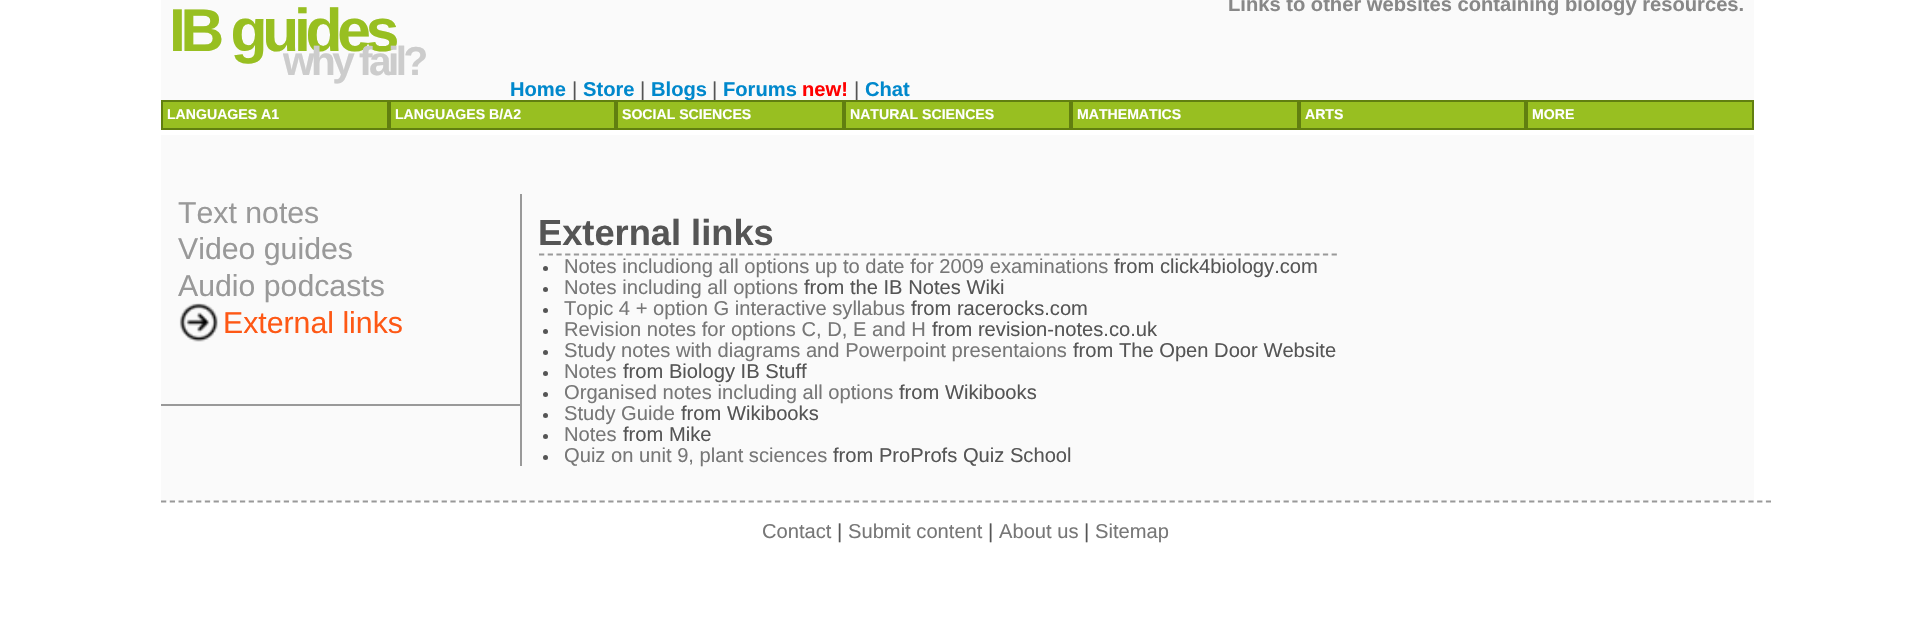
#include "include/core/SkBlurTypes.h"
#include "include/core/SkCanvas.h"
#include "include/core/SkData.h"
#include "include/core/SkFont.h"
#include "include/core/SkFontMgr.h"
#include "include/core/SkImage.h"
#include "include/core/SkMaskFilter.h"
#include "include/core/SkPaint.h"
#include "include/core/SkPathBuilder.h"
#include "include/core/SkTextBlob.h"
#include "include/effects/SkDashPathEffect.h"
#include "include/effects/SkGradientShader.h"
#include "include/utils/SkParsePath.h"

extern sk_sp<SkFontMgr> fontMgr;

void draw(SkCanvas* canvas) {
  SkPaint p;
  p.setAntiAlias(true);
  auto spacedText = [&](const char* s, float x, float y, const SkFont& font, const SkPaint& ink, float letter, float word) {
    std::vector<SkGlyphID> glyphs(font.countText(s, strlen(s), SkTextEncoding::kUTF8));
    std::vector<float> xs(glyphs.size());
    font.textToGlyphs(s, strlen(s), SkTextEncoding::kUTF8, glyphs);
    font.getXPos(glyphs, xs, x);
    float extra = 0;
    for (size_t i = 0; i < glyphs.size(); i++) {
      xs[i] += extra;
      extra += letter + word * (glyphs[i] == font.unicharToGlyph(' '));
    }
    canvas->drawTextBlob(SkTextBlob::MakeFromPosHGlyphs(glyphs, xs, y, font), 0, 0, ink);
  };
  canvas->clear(SK_ColorWHITE);
  p.setColor(SkColorSetRGB(250, 250, 250));
  canvas->drawRect(SkRect::MakeLTRB(161, 0, 1754, 100), p);
  p.setColor(SkColorSetRGB(152, 191, 33));
  canvas->drawRect(SkRect::MakeLTRB(162, 101, 388, 129), p);
  p.setStyle(SkPaint::kStroke_Style);
  p.setStrokeWidth(2);
  p.setColor(SkColorSetRGB(97, 127, 16));
  canvas->drawRect(SkRect::MakeLTRB(162, 101, 388, 129), p);
  p.setStyle(SkPaint::kFill_Style);
  p.setColor(SkColorSetRGB(152, 191, 33));
  canvas->drawRect(SkRect::MakeLTRB(1072, 101, 1298, 129), p);
  p.setStyle(SkPaint::kStroke_Style);
  p.setColor(SkColorSetRGB(97, 127, 16));
  canvas->drawRect(SkRect::MakeLTRB(1072, 101, 1298, 129), p);
  p.setStyle(SkPaint::kFill_Style);
  p.setColor(SkColorSetRGB(152, 191, 33));
  canvas->drawRect(SkRect::MakeLTRB(1300, 101, 1525, 129), p);
  p.setStyle(SkPaint::kStroke_Style);
  p.setColor(SkColorSetRGB(97, 127, 16));
  canvas->drawRect(SkRect::MakeLTRB(1300, 101, 1525, 129), p);
  p.setStyle(SkPaint::kFill_Style);
  p.setColor(SkColorSetRGB(152, 191, 33));
  canvas->drawRect(SkRect::MakeLTRB(1527, 101, 1753, 129), p);
  p.setStyle(SkPaint::kStroke_Style);
  p.setColor(SkColorSetRGB(97, 127, 16));
  canvas->drawRect(SkRect::MakeLTRB(1527, 101, 1753, 129), p);
  p.setStyle(SkPaint::kFill_Style);
  p.setColor(SkColorSetRGB(250, 250, 250));
  canvas->drawRect(SkRect::MakeLTRB(161, 135, 1754, 501), p);
  p.setColor(SkColorSetRGB(153, 153, 153));
  canvas->drawRect(SkRect::MakeLTRB(520, 194, 522, 404), p);
  canvas->drawImageRect(SkImages::DeferredFromEncodedData(SkData::MakeFromFileName("images/1.png")), SkRect::MakeLTRB(179, 303, 218, 342), SkSamplingOptions());
  p.setStyle(SkPaint::kStroke_Style);
  p.setStrokeWidth(1.8f);
  p.setPathEffect(SkDashPathEffect::Make({{5.25f, 3.46f}}, 0));
  canvas->drawPath(SkPathBuilder().moveTo(539, 254.5f).lineTo(1337, 254.5f).detach(), p);
  p.setPathEffect(nullptr);
  p.setStyle(SkPaint::kFill_Style);
  p.setColor(SkColorSetRGB(85, 85, 85));
  canvas->drawCircle(545.5f, 268.5f, 2.5f, p);
  canvas->drawCircle(545.5f, 289.5f, 2.5f, p);
  canvas->drawCircle(545.5f, 310.5f, 2.5f, p);
  canvas->drawCircle(545.5f, 331.5f, 2.5f, p);
  canvas->drawCircle(545.5f, 352.5f, 2.5f, p);
  canvas->drawCircle(545.5f, 373.5f, 2.5f, p);
  canvas->drawCircle(545.5f, 394.5f, 2.5f, p);
  canvas->drawCircle(545.5f, 415.5f, 2.5f, p);
  canvas->drawCircle(545.5f, 436.5f, 2.5f, p);
  canvas->drawCircle(545.5f, 457.5f, 2.5f, p);
  p.setColor(SkColorSetRGB(153, 153, 153));
  canvas->drawRect(SkRect::MakeLTRB(161, 404, 522, 406), p);
  canvas->drawRect(SkRect::MakeLTRB(520, 404, 522, 466), p);
  p.setStyle(SkPaint::kStroke_Style);
  p.setPathEffect(SkDashPathEffect::Make({{5.25f, 3.52f}}, 0));
  canvas->drawPath(SkPathBuilder().moveTo(161, 501.5f).lineTo(1771, 501.5f).detach(), p);
  p.setPathEffect(nullptr);
  SkFont font1(fontMgr->matchFamilyStyle("Liberation Sans", SkFontStyle::Bold()), 60.5f);
  font1.setSubpixel(true);
  p.setStyle(SkPaint::kFill_Style);
  p.setColor(SkColorSetRGB(152, 191, 33));
  spacedText("IB guides", 169, 51, font1, p, -5.25f, 0);
  SkFont font2(fontMgr->matchFamilyStyle("Liberation Sans", SkFontStyle::Bold()), 20.15f);
  font2.setSubpixel(true);
  p.setColor(SkColorSetRGB(136, 136, 136));
  canvas->drawString("Links to other websites containing biology resources.", 1228, 11, font2, p);
  SkFont font3(fontMgr->matchFamilyStyle("Liberation Sans", SkFontStyle::Bold()), 40.5f);
  font3.setSubpixel(true);
  p.setColor(SkColorSetRGB(204, 204, 204));
  spacedText("why fail?", 283, 75, font3, p, -3.5f, 0);
  p.setColor(SkColorSetRGB(0, 136, 204));
  canvas->drawString("Home", 510, 96, font2, p);
  SkFont font4(fontMgr->matchFamilyStyle("Liberation Sans", SkFontStyle::Normal()), 20.15f);
  font4.setSubpixel(true);
  p.setColor(SkColorSetRGB(85, 85, 85));
  canvas->drawString("|", 572, 96, font4, p);
  p.setColor(SkColorSetRGB(0, 136, 204));
  canvas->drawString("Store", 583, 96, font2, p);
  p.setColor(SkColorSetRGB(85, 85, 85));
  canvas->drawString("|", 640, 96, font4, p);
  p.setColor(SkColorSetRGB(0, 136, 204));
  canvas->drawString("Blogs", 651, 96, font2, p);
  p.setColor(SkColorSetRGB(85, 85, 85));
  canvas->drawString("|", 712, 96, font4, p);
  p.setColor(SkColorSetRGB(0, 136, 204));
  canvas->drawString("Forums", 723, 96, font2, p);
  p.setColor(SkColorSetRGB(255, 0, 0));
  canvas->drawString("new!", 802, 96, font2, p);
  p.setColor(SkColorSetRGB(85, 85, 85));
  canvas->drawString("|", 854, 96, font4, p);
  p.setColor(SkColorSetRGB(0, 136, 204));
  canvas->drawString("Chat", 865, 96, font2, p);
  SkFont font5(fontMgr->matchFamilyStyle("Liberation Sans", SkFontStyle::Bold()), 14.1f);
  font5.setSubpixel(true);
  p.setColor(SK_ColorWHITE);
  canvas->drawString("LANGUAGES A1", 167, 119, font5, p);
  p.setColor(SkColorSetRGB(152, 191, 33));
  canvas->drawRect(SkRect::MakeLTRB(390, 101, 615, 129), p);
  p.setStyle(SkPaint::kStroke_Style);
  p.setStrokeWidth(2);
  p.setColor(SkColorSetRGB(97, 127, 16));
  canvas->drawRect(SkRect::MakeLTRB(390, 101, 615, 129), p);
  p.setStyle(SkPaint::kFill_Style);
  p.setColor(SK_ColorWHITE);
  canvas->drawString("LANGUAGES B/A2", 395, 119, font5, p);
  p.setColor(SkColorSetRGB(152, 191, 33));
  canvas->drawRect(SkRect::MakeLTRB(617, 101, 843, 129), p);
  p.setStyle(SkPaint::kStroke_Style);
  p.setColor(SkColorSetRGB(97, 127, 16));
  canvas->drawRect(SkRect::MakeLTRB(617, 101, 843, 129), p);
  p.setStyle(SkPaint::kFill_Style);
  p.setColor(SK_ColorWHITE);
  canvas->drawString("SOCIAL SCIENCES", 622, 119, font5, p);
  p.setColor(SkColorSetRGB(152, 191, 33));
  canvas->drawRect(SkRect::MakeLTRB(845, 101, 1070, 129), p);
  p.setStyle(SkPaint::kStroke_Style);
  p.setColor(SkColorSetRGB(97, 127, 16));
  canvas->drawRect(SkRect::MakeLTRB(845, 101, 1070, 129), p);
  p.setStyle(SkPaint::kFill_Style);
  p.setColor(SK_ColorWHITE);
  canvas->drawString("NATURAL SCIENCES", 850, 119, font5, p);
  canvas->drawString("MATHEMATICS", 1077, 119, font5, p);
  canvas->drawString("ARTS", 1305, 119, font5, p);
  canvas->drawString("MORE", 1532, 119, font5, p);
  SkFont font6(fontMgr->matchFamilyStyle("Liberation Sans", SkFontStyle::Normal()), 30.25f);
  font6.setSubpixel(true);
  p.setColor(SkColorSetRGB(153, 153, 153));
  canvas->drawString("Text notes", 178, 223, font6, p);
  canvas->drawString("Video guides", 178, 259, font6, p);
  canvas->drawString("Audio podcasts", 178, 296, font6, p);
  p.setColor(SkColorSetRGB(254, 88, 21));
  canvas->drawString("External links", 223, 333, font6, p);
  SkFont font7(fontMgr->matchFamilyStyle("Liberation Sans", SkFontStyle::Bold()), 36.25f);
  font7.setSubpixel(true);
  p.setColor(SkColorSetRGB(85, 85, 85));
  canvas->drawString("External links", 538, 245, font7, p);
  p.setColor(SkColorSetRGB(119, 119, 119));
  canvas->drawString("Notes includiong all options up to date for 2009 examinations", 564, 273, font4, p);
  p.setColor(SkColorSetRGB(85, 85, 85));
  canvas->drawString("from click4biology.com", 1114, 273, font4, p);
  p.setColor(SkColorSetRGB(119, 119, 119));
  canvas->drawString("Notes including all options", 564, 294, font4, p);
  p.setColor(SkColorSetRGB(85, 85, 85));
  canvas->drawString("from the IB Notes Wiki", 804, 294, font4, p);
  p.setColor(SkColorSetRGB(119, 119, 119));
  canvas->drawString("Topic 4 + option G interactive syllabus", 564, 315, font4, p);
  p.setColor(SkColorSetRGB(85, 85, 85));
  canvas->drawString("from racerocks.com", 911, 315, font4, p);
  p.setColor(SkColorSetRGB(119, 119, 119));
  canvas->drawString("Revision notes for options C, D, E and H", 564, 336, font4, p);
  p.setColor(SkColorSetRGB(85, 85, 85));
  canvas->drawString("from revision-notes.co.uk", 932, 336, font4, p);
  p.setColor(SkColorSetRGB(119, 119, 119));
  canvas->drawString("Study notes with diagrams and Powerpoint presentaions", 564, 357, font4, p);
  p.setColor(SkColorSetRGB(85, 85, 85));
  canvas->drawString("from The Open Door Website", 1073, 357, font4, p);
  p.setColor(SkColorSetRGB(119, 119, 119));
  canvas->drawString("Notes", 564, 378, font4, p);
  p.setColor(SkColorSetRGB(85, 85, 85));
  canvas->drawString("from Biology IB Stuff", 623, 378, font4, p);
  p.setColor(SkColorSetRGB(119, 119, 119));
  canvas->drawString("Organised notes including all options", 564, 399, font4, p);
  p.setColor(SkColorSetRGB(85, 85, 85));
  canvas->drawString("from Wikibooks", 899, 399, font4, p);
  p.setColor(SkColorSetRGB(119, 119, 119));
  canvas->drawString("Study Guide", 564, 420, font4, p);
  p.setColor(SkColorSetRGB(85, 85, 85));
  canvas->drawString("from Wikibooks", 681, 420, font4, p);
  p.setColor(SkColorSetRGB(119, 119, 119));
  canvas->drawString("Notes", 564, 441, font4, p);
  p.setColor(SkColorSetRGB(85, 85, 85));
  canvas->drawString("from Mike", 623, 441, font4, p);
  p.setColor(SkColorSetRGB(119, 119, 119));
  canvas->drawString("Quiz on unit 9, plant sciences", 564, 462, font4, p);
  p.setColor(SkColorSetRGB(85, 85, 85));
  canvas->drawString("from ProProfs Quiz School", 833, 462, font4, p);
  p.setColor(SkColorSetRGB(119, 119, 119));
  canvas->drawString("Contact", 762, 538, font4, p);
  p.setColor(SkColorSetRGB(85, 85, 85));
  canvas->drawString("|", 837, 538, font4, p);
  p.setColor(SkColorSetRGB(119, 119, 119));
  canvas->drawString("Submit content", 848, 538, font4, p);
  p.setColor(SkColorSetRGB(85, 85, 85));
  canvas->drawString("|", 988, 538, font4, p);
  p.setColor(SkColorSetRGB(119, 119, 119));
  canvas->drawString("About us", 999, 538, font4, p);
  p.setColor(SkColorSetRGB(85, 85, 85));
  canvas->drawString("|", 1084, 538, font4, p);
  p.setColor(SkColorSetRGB(119, 119, 119));
  canvas->drawString("Sitemap", 1095, 538, font4, p);
}
